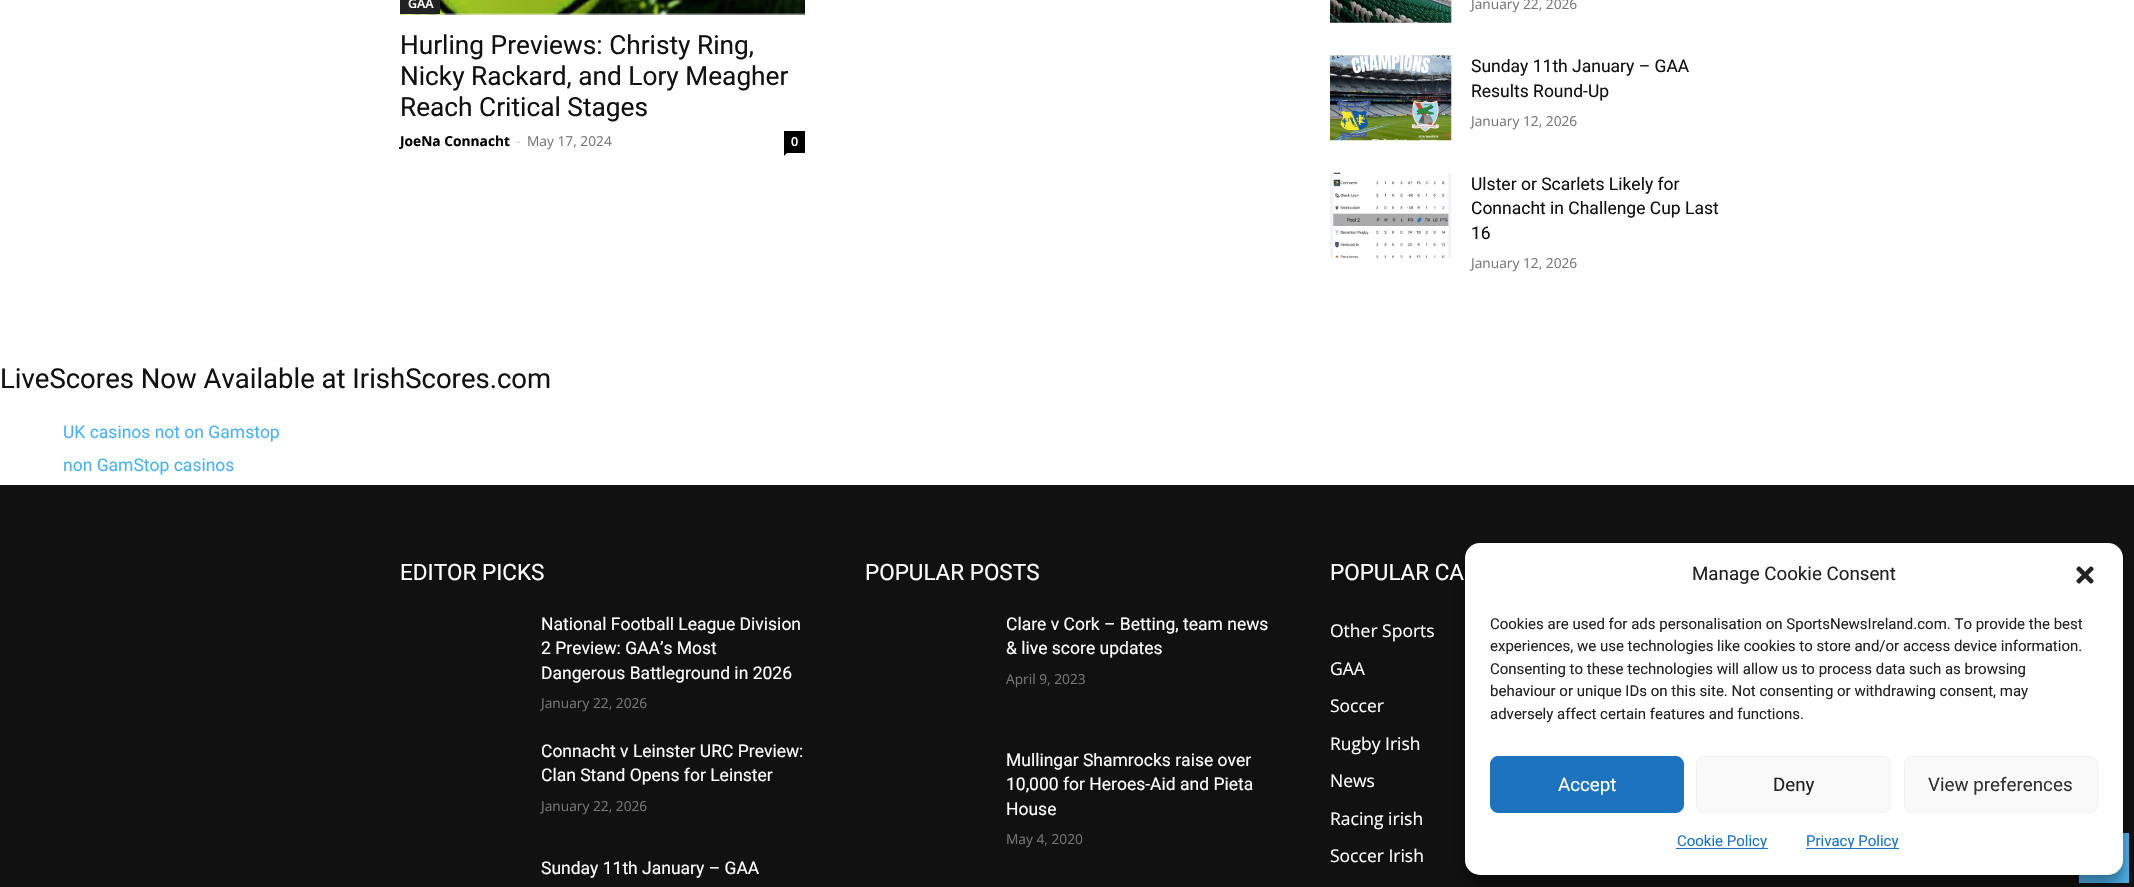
#include "include/core/SkBlurTypes.h"
#include "include/core/SkCanvas.h"
#include "include/core/SkData.h"
#include "include/core/SkFont.h"
#include "include/core/SkFontMgr.h"
#include "include/core/SkImage.h"
#include "include/core/SkMaskFilter.h"
#include "include/core/SkPaint.h"
#include "include/core/SkPathBuilder.h"
#include "include/core/SkTextBlob.h"
#include "include/effects/SkDashPathEffect.h"
#include "include/effects/SkGradientShader.h"
#include "include/utils/SkParsePath.h"

extern sk_sp<SkFontMgr> fontMgr;

void draw(SkCanvas* canvas) {
  SkPaint p;
  p.setAntiAlias(true);
  canvas->clear(SK_ColorWHITE);
  canvas->drawImageRect(SkImages::DeferredFromEncodedData(SkData::MakeFromFileName("images/1.png")), SkRect::MakeLTRB(400, 0, 805, 15), SkSamplingOptions());
  p.setColor(SkColorSetRGB(34, 34, 34));
  canvas->drawRect(SkRect::MakeLTRB(400, 0, 440, 14), p);
  p.setColor(SK_ColorBLACK);
  canvas->drawRect(SkRect::MakeLTRB(784, 131, 805, 153), p);
  canvas->drawPath(SkPathBuilder().moveTo(784, 152.5f).lineTo(787.5f, 152.5f).lineTo(784, 156).close().detach(), p);
  canvas->drawImageRect(SkImages::DeferredFromEncodedData(SkData::MakeFromFileName("images/2.png")), SkRect::MakeLTRB(1330, 0, 1452, 23), SkSamplingOptions());
  canvas->drawImageRect(SkImages::DeferredFromEncodedData(SkData::MakeFromFileName("images/3.png")), SkRect::MakeLTRB(1330, 55, 1452, 141), SkSamplingOptions());
  canvas->drawImageRect(SkImages::DeferredFromEncodedData(SkData::MakeFromFileName("images/4.png")), SkRect::MakeLTRB(1330, 172, 1452, 258), SkSamplingOptions());
  p.setColor(SkColorSetRGB(17, 17, 17));
  canvas->drawRect(SkRect::MakeLTRB(0, 485, 2134, 887), p);
  p.setColor(SkColorSetRGB(77, 178, 236));
  canvas->drawRect(SkRect::MakeLTRB(2079, 833, 2129, 883), p);
  p.setColor(SkColorSetARGB(59, 0, 0, 0));
  p.setMaskFilter(SkMaskFilter::MakeBlur(kNormal_SkBlurStyle, 4));
  canvas->drawRoundRect(SkRect::MakeLTRB(1465, 550, 2123, 883), 15, 15, p);
  p.setMaskFilter(nullptr);
  p.setColor(SkColorSetARGB(48, 0, 0, 0));
  p.setMaskFilter(SkMaskFilter::MakeBlur(kNormal_SkBlurStyle, 12.5f));
  canvas->drawRoundRect(SkRect::MakeLTRB(1465, 555, 2123, 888), 15, 15, p);
  p.setMaskFilter(nullptr);
  p.setColor(SK_ColorWHITE);
  canvas->drawRoundRect(SkRect::MakeLTRB(1465, 543, 2123, 875), 15, 15, p);
  canvas->drawImageRect(SkImages::DeferredFromEncodedData(SkData::MakeFromFileName("images/5.png")), SkRect::MakeLTRB(2076, 566, 2094, 584), SkSamplingOptions());
  p.setColor(SkColorSetRGB(30, 115, 190));
  canvas->drawRoundRect(SkRect::MakeLTRB(1490.5f, 756.5f, 1683.5f, 812.5f), 7.5f, 7.5f, p);
  p.setStyle(SkPaint::kStroke_Style);
  p.setStrokeWidth(1);
  canvas->drawRoundRect(SkRect::MakeLTRB(1490.5f, 756.5f, 1683.5f, 812.5f), 7.5f, 7.5f, p);
  p.setStyle(SkPaint::kFill_Style);
  p.setColor(SkColorSetRGB(249, 249, 249));
  canvas->drawRoundRect(SkRect::MakeLTRB(1696.5f, 756.5f, 1890.5f, 812.5f), 7.5f, 7.5f, p);
  p.setStyle(SkPaint::kStroke_Style);
  p.setColor(SkColorSetRGB(242, 242, 242));
  canvas->drawRoundRect(SkRect::MakeLTRB(1696.5f, 756.5f, 1890.5f, 812.5f), 7.5f, 7.5f, p);
  p.setStyle(SkPaint::kFill_Style);
  p.setColor(SkColorSetRGB(249, 249, 249));
  canvas->drawRoundRect(SkRect::MakeLTRB(1904.5f, 756.5f, 2097.5f, 812.5f), 7.5f, 7.5f, p);
  p.setStyle(SkPaint::kStroke_Style);
  p.setColor(SkColorSetRGB(242, 242, 242));
  canvas->drawRoundRect(SkRect::MakeLTRB(1904.5f, 756.5f, 2097.5f, 812.5f), 7.5f, 7.5f, p);
  p.setStyle(SkPaint::kFill_Style);
  p.setColor(SkColorSetRGB(30, 115, 190));
  canvas->drawRect(SkRect::MakeLTRB(1676, 848, 1768, 849), p);
  canvas->drawRect(SkRect::MakeLTRB(1806, 848, 1899, 849), p);
  SkFont font1(fontMgr->matchFamilyStyle("Open Sans", SkFontStyle(600, SkFontStyle::kNormal_Width, SkFontStyle::kUpright_Slant)), 12.5f);
  font1.setSubpixel(true);
  p.setColor(SK_ColorWHITE);
  canvas->drawString("GAA", 408, 8, font1, p);
  SkFont font2(fontMgr->matchFamilyStyle("Roboto", SkFontStyle::Normal()), 26.25f);
  font2.setSubpixel(true);
  p.setColor(SkColorSetRGB(17, 17, 17));
  canvas->drawString("Hurling Previews: Christy Ring,", 400, 54, font2, p);
  canvas->drawString("Nicky Rackard, and Lory Meagher", 400, 85, font2, p);
  canvas->drawString("Reach Critical Stages", 400, 116, font2, p);
  SkFont font3(fontMgr->matchFamilyStyle("Open Sans", SkFontStyle::Bold()), 13.75f);
  font3.setSubpixel(true);
  p.setColor(SK_ColorBLACK);
  canvas->drawString("JoeNa Connacht", 400, 146, font3, p);
  SkFont font4(fontMgr->matchFamilyStyle("Open Sans", SkFontStyle::Normal()), 13.75f);
  font4.setSubpixel(true);
  p.setColor(SkColorSetRGB(204, 204, 204));
  canvas->drawString("-", 516, 146, font4, p);
  p.setColor(SkColorSetRGB(118, 118, 118));
  canvas->drawString("May 17, 2024", 527, 146, font4, p);
  p.setColor(SK_ColorWHITE);
  canvas->drawString("0", 791, 146, font1, p);
  p.setColor(SkColorSetRGB(118, 118, 118));
  canvas->drawString("January 22, 2026", 1471, 9, font4, p);
  SkFont font5(fontMgr->matchFamilyStyle("Roboto", SkFontStyle::Normal()), 17.5f);
  font5.setSubpixel(true);
  p.setColor(SkColorSetRGB(17, 17, 17));
  canvas->drawString("Sunday 11th January – GAA", 1471, 72, font5, p);
  canvas->drawString("Results Round-Up", 1471, 97, font5, p);
  p.setColor(SkColorSetRGB(118, 118, 118));
  canvas->drawString("January 12, 2026", 1471, 126, font4, p);
  p.setColor(SkColorSetRGB(17, 17, 17));
  canvas->drawString("Ulster or Scarlets Likely for", 1471, 190, font5, p);
  canvas->drawString("Connacht in Challenge Cup Last", 1471, 214, font5, p);
  canvas->drawString("16", 1471, 239, font5, p);
  p.setColor(SkColorSetRGB(118, 118, 118));
  canvas->drawString("January 12, 2026", 1471, 268, font4, p);
  SkFont font6(fontMgr->matchFamilyStyle("Roboto", SkFontStyle::Normal()), 27.5f);
  font6.setSubpixel(true);
  p.setColor(SkColorSetRGB(17, 17, 17));
  canvas->drawString("LiveScores Now Available at IrishScores.com", 0, 388, font6, p);
  p.setColor(SkColorSetRGB(77, 178, 236));
  canvas->drawString("UK casinos not on Gamstop", 63, 438, font5, p);
  canvas->drawString("non GamStop casinos", 63, 471, font5, p);
  SkFont font7(fontMgr->matchFamilyStyle("Roboto", SkFontStyle::Normal()), 22.5f);
  font7.setSubpixel(true);
  p.setColor(SK_ColorWHITE);
  canvas->drawString("EDITOR PICKS", 400, 580, font7, p);
  canvas->drawString("National Football League Division", 541, 630, font5, p);
  canvas->drawString("2 Preview: GAA’s Most", 541, 654, font5, p);
  canvas->drawString("Dangerous Battleground in 2026", 541, 679, font5, p);
  p.setColor(SkColorSetRGB(118, 118, 118));
  canvas->drawString("January 22, 2026", 541, 708, font4, p);
  p.setColor(SK_ColorWHITE);
  canvas->drawString("Connacht v Leinster URC Preview:", 541, 757, font5, p);
  canvas->drawString("Clan Stand Opens for Leinster", 541, 781, font5, p);
  p.setColor(SkColorSetRGB(118, 118, 118));
  canvas->drawString("January 22, 2026", 541, 811, font4, p);
  p.setColor(SK_ColorWHITE);
  canvas->drawString("Sunday 11th January – GAA", 541, 874, font5, p);
  canvas->drawString("POPULAR POSTS", 865, 580, font7, p);
  canvas->drawString("Clare v Cork – Betting, team news", 1006, 630, font5, p);
  canvas->drawString("& live score updates", 1006, 654, font5, p);
  p.setColor(SkColorSetRGB(118, 118, 118));
  canvas->drawString("April 9, 2023", 1006, 684, font4, p);
  p.setColor(SK_ColorWHITE);
  canvas->drawString("Mullingar Shamrocks raise over", 1006, 766, font5, p);
  canvas->drawString("10,000 for Heroes-Aid and Pieta", 1006, 790, font5, p);
  canvas->drawString("House", 1006, 815, font5, p);
  p.setColor(SkColorSetRGB(118, 118, 118));
  canvas->drawString("May 4, 2020", 1006, 844, font4, p);
  p.setColor(SK_ColorWHITE);
  canvas->drawString("POPULAR CA", 1330, 580, font7, p);
  SkFont font8(fontMgr->matchFamilyStyle("Open Sans", SkFontStyle::Normal()), 17.5f);
  font8.setSubpixel(true);
  canvas->drawString("Other Sports", 1330, 637, font8, p);
  canvas->drawString("GAA", 1330, 675, font8, p);
  canvas->drawString("Soccer", 1330, 712, font8, p);
  canvas->drawString("Rugby Irish", 1330, 750, font8, p);
  canvas->drawString("News", 1330, 787, font8, p);
  canvas->drawString("Racing irish", 1330, 825, font8, p);
  canvas->drawString("Soccer Irish", 1330, 862, font8, p);
  SkFont font9(fontMgr->matchFamilyStyle("Roboto", SkFontStyle::Normal()), 18.75f);
  font9.setSubpixel(true);
  p.setColor(SkColorSetRGB(34, 34, 34));
  canvas->drawString("Manage Cookie Consent", 1692, 580, font9, p);
  SkFont font10(fontMgr->matchFamilyStyle("Roboto", SkFontStyle::Normal()), 15);
  font10.setSubpixel(true);
  canvas->drawString("Cookies are used for ads personalisation on SportsNewsIreland.com. To provide the best", 1490, 629, font10, p);
  canvas->drawString("experiences, we use technologies like cookies to store and/or access device information.", 1490, 651, font10, p);
  canvas->drawString("Consenting to these technologies will allow us to process data such as browsing", 1490, 674, font10, p);
  canvas->drawString("behaviour or unique IDs on this site. Not consenting or withdrawing consent, may", 1490, 696, font10, p);
  canvas->drawString("adversely affect certain features and functions.", 1490, 719, font10, p);
  p.setColor(SK_ColorWHITE);
  canvas->drawString("Accept", 1558, 791, font9, p);
  p.setColor(SkColorSetRGB(34, 34, 34));
  canvas->drawString("Deny", 1773, 791, font9, p);
  p.setColor(SkColorSetRGB(51, 51, 51));
  canvas->drawString("View preferences", 1928, 791, font9, p);
  p.setColor(SkColorSetRGB(30, 115, 190));
  canvas->drawString("Cookie Policy", 1677, 846, font10, p);
  canvas->drawString("Privacy Policy", 1806, 846, font10, p);
}
